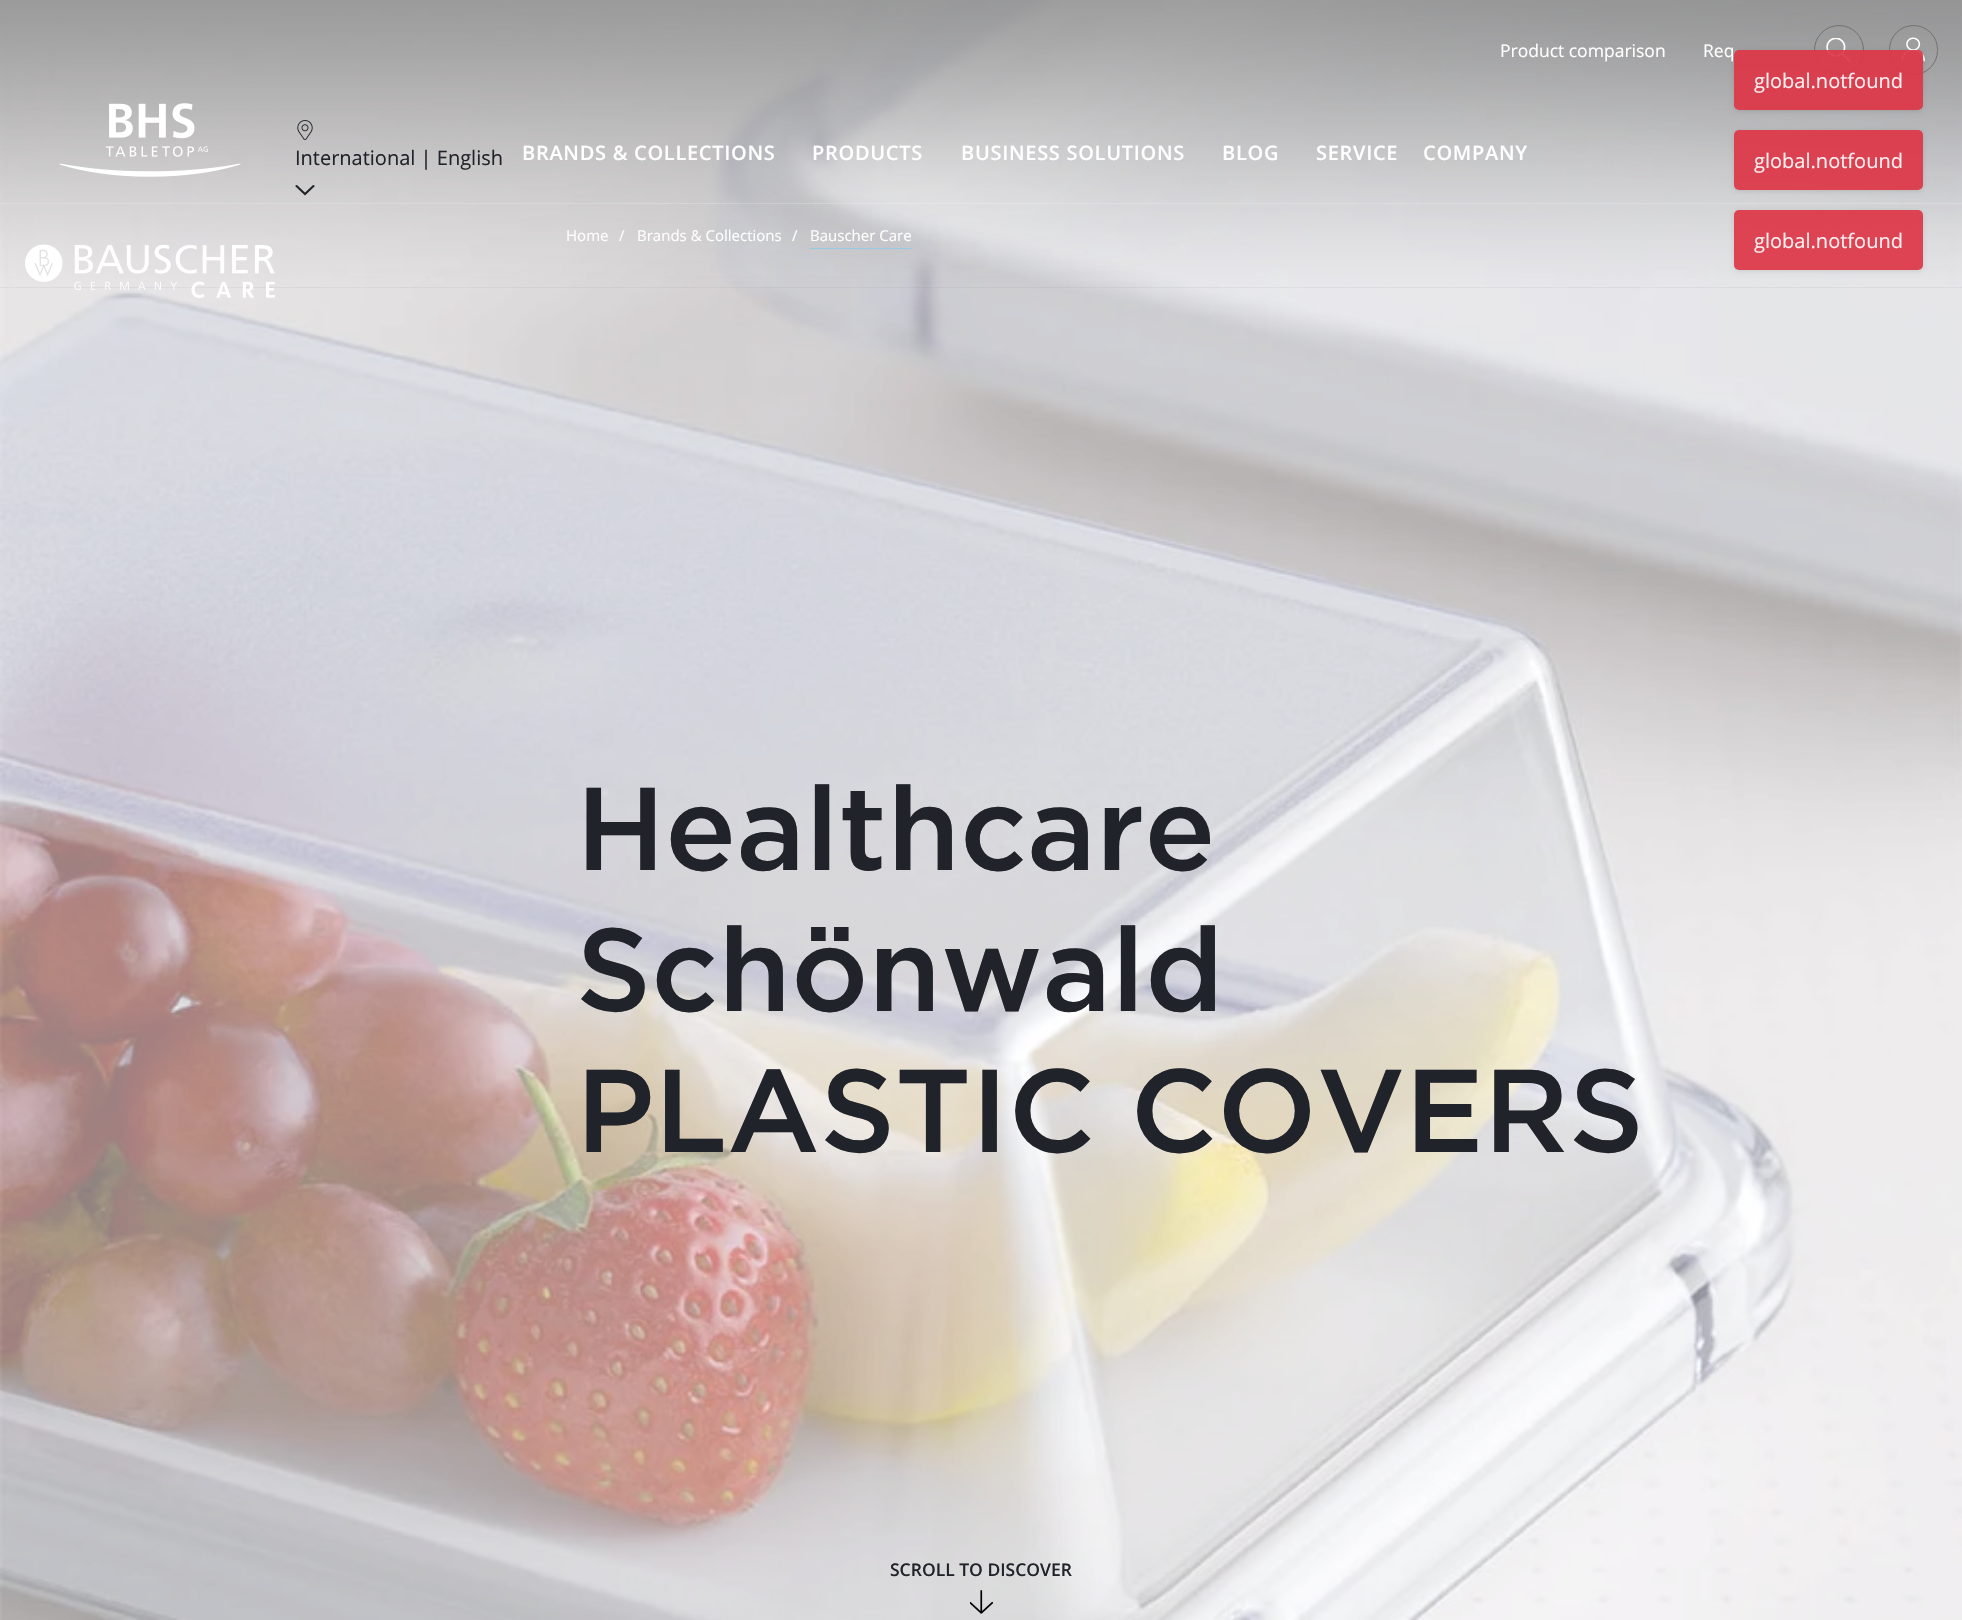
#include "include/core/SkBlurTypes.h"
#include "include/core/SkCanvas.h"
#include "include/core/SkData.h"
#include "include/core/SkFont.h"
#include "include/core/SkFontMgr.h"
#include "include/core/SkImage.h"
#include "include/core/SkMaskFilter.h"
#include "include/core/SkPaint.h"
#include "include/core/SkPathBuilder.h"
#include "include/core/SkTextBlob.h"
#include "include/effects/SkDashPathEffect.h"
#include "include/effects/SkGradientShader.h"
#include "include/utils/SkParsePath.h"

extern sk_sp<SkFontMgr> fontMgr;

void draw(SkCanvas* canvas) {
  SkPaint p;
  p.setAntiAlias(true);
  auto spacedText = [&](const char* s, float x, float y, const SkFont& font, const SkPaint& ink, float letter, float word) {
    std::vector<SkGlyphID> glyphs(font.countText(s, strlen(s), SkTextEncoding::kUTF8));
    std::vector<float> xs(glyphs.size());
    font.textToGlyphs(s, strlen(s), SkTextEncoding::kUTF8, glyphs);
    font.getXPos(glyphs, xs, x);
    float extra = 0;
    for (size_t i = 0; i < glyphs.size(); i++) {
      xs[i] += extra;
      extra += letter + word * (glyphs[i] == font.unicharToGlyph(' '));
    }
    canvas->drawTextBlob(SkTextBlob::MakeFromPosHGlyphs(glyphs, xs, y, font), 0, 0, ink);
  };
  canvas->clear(SK_ColorWHITE);
  canvas->drawImageRect(SkImages::DeferredFromEncodedData(SkData::MakeFromFileName("images/7.png")), SkRect::MakeLTRB(0, 0, 1962, 1620), SkSamplingOptions());
  canvas->drawImageRect(SkImages::DeferredFromEncodedData(SkData::MakeFromFileName("images/1.png")), SkRect::MakeLTRB(0, 0, 1962, 288), SkSamplingOptions());
  p.setColor(SkColorSetARGB(51, 255, 255, 255));
  canvas->drawRect(SkRect::MakeLTRB(0, 203, 1962, 204), p);
  canvas->drawImageRect(SkImages::DeferredFromEncodedData(SkData::MakeFromFileName("images/2.png")), SkRect::MakeLTRB(59, 103, 241, 177), SkSamplingOptions());
  canvas->drawImageRect(SkImages::DeferredFromEncodedData(SkData::MakeFromFileName("images/3.png")), SkRect::MakeLTRB(25, 244, 275, 298), SkSamplingOptions());
  p.setStyle(SkPaint::kStroke_Style);
  p.setStrokeWidth(1);
  p.setColor(SkColorSetRGB(112, 112, 112));
  canvas->drawCircle(1839, 50, 24.5f, p);
  canvas->drawImageRect(SkImages::DeferredFromEncodedData(SkData::MakeFromFileName("images/4.png")), SkRect::MakeLTRB(1826, 38, 1851, 63), SkSamplingOptions());
  canvas->drawRoundRect(SkRect::MakeLTRB(1889.5f, 25.5f, 1937.5f, 74.5f), 24, 24, p);
  canvas->drawImageRect(SkImages::DeferredFromEncodedData(SkData::MakeFromFileName("images/5.png")), SkRect::MakeLTRB(1901, 37, 1925, 62), SkSamplingOptions());
  canvas->drawImageRect(SkImages::DeferredFromEncodedData(SkData::MakeFromFileName("images/6.png")), SkRect::MakeLTRB(297, 120, 313, 140), SkSamplingOptions());
  p.setStrokeWidth(2.1f);
  p.setStrokeCap(SkPaint::kRound_Cap);
  p.setColor(SkColorSetRGB(32, 35, 41));
  canvas->drawPath(SkPathBuilder().moveTo(313.5f, 186).lineTo(305, 194).lineTo(296.5f, 186).detach(), p);
  canvas->save();
  canvas->clipPath(SkPathBuilder(SkPathFillType::kEvenOdd).moveTo(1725, 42).lineTo(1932, 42).lineTo(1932, 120).lineTo(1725, 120).close().moveTo(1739, 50).lineTo(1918, 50).cubicTo(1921, 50, 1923, 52, 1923, 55).lineTo(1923, 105).cubicTo(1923, 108, 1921, 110, 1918, 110).lineTo(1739, 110).cubicTo(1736, 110, 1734, 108, 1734, 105).lineTo(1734, 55).cubicTo(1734, 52, 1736, 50, 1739, 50).close().detach(), true);
  p.setStyle(SkPaint::kFill_Style);
  p.setColor(SkColorSetARGB(28, 0, 0, 0));
  p.setMaskFilter(SkMaskFilter::MakeBlur(kNormal_SkBlurStyle, 2.5f));
  canvas->drawRoundRect(SkRect::MakeLTRB(1734, 51, 1923, 111), 5, 5, p);
  p.setMaskFilter(nullptr);
  canvas->restore();
  p.setColor(SkColorSetARGB(235, 220, 53, 69));
  canvas->drawRoundRect(SkRect::MakeLTRB(1734, 50, 1923, 110), 5, 5, p);
  canvas->save();
  canvas->clipPath(SkPathBuilder(SkPathFillType::kEvenOdd).moveTo(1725, 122).lineTo(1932, 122).lineTo(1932, 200).lineTo(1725, 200).close().moveTo(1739, 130).lineTo(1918, 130).cubicTo(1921, 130, 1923, 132, 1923, 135).lineTo(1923, 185).cubicTo(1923, 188, 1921, 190, 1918, 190).lineTo(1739, 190).cubicTo(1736, 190, 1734, 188, 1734, 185).lineTo(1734, 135).cubicTo(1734, 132, 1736, 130, 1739, 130).close().detach(), true);
  p.setColor(SkColorSetARGB(28, 0, 0, 0));
  p.setMaskFilter(SkMaskFilter::MakeBlur(kNormal_SkBlurStyle, 2.5f));
  canvas->drawRoundRect(SkRect::MakeLTRB(1734, 131, 1923, 191), 5, 5, p);
  p.setMaskFilter(nullptr);
  canvas->restore();
  p.setColor(SkColorSetARGB(235, 220, 53, 69));
  canvas->drawRoundRect(SkRect::MakeLTRB(1734, 130, 1923, 190), 5, 5, p);
  canvas->save();
  canvas->clipPath(SkPathBuilder(SkPathFillType::kEvenOdd).moveTo(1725, 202).lineTo(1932, 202).lineTo(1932, 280).lineTo(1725, 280).close().moveTo(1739, 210).lineTo(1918, 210).cubicTo(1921, 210, 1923, 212, 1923, 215).lineTo(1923, 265).cubicTo(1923, 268, 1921, 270, 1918, 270).lineTo(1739, 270).cubicTo(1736, 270, 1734, 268, 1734, 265).lineTo(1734, 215).cubicTo(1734, 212, 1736, 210, 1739, 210).close().detach(), true);
  p.setColor(SkColorSetARGB(28, 0, 0, 0));
  p.setMaskFilter(SkMaskFilter::MakeBlur(kNormal_SkBlurStyle, 2.5f));
  canvas->drawRoundRect(SkRect::MakeLTRB(1734, 211, 1923, 271), 5, 5, p);
  p.setMaskFilter(nullptr);
  canvas->restore();
  p.setColor(SkColorSetARGB(235, 220, 53, 69));
  canvas->drawRoundRect(SkRect::MakeLTRB(1734, 210, 1923, 270), 5, 5, p);
  p.setColor(SkColorSetRGB(151, 202, 229));
  canvas->drawRect(SkRect::MakeLTRB(810, 248, 911, 249), p);
  canvas->drawImageRect(SkImages::DeferredFromEncodedData(SkData::MakeFromFileName("images/8.png")), SkRect::MakeLTRB(970, 1590, 994, 1614), SkSamplingOptions());
  SkFont font1(fontMgr->matchFamilyStyle("Open Sans", SkFontStyle::Normal()), 17.5f);
  font1.setSubpixel(true);
  p.setColor(SK_ColorWHITE);
  canvas->drawString("Product comparison", 1500, 57, font1, p);
  canvas->drawString("Req", 1703, 57, font1, p);
  SkFont font2(fontMgr->matchFamilyStyle("Open Sans", SkFontStyle::Normal()), 20);
  font2.setSubpixel(true);
  p.setColor(SkColorSetRGB(32, 35, 41));
  canvas->drawString("International | English", 295, 165, font2, p);
  SkFont font3(fontMgr->matchFamilyStyle("Open Sans", SkFontStyle(600, SkFontStyle::kNormal_Width, SkFontStyle::kUpright_Slant)), 20);
  font3.setSubpixel(true);
  p.setColor(SK_ColorWHITE);
  spacedText("BRANDS & COLLECTIONS", 522, 160, font3, p, 0.7f, 0);
  spacedText("PRODUCTS", 812, 160, font3, p, 0.7f, 0);
  spacedText("BUSINESS SOLUTIONS", 961, 160, font3, p, 0.7f, 0);
  spacedText("BLOG", 1222, 160, font3, p, 0.7f, 0);
  spacedText("SERVICE", 1316, 160, font3, p, 0.7f, 0);
  spacedText("COMPANY", 1423, 160, font3, p, 0.7f, 0);
  p.setColor(SkColorSetRGB(252, 240, 241));
  canvas->drawString("global.notfound", 1754, 88, font2, p);
  canvas->drawString("global.notfound", 1754, 168, font2, p);
  canvas->drawString("global.notfound", 1754, 248, font2, p);
  SkFont font4(fontMgr->matchFamilyStyle("Open Sans", SkFontStyle::Normal()), 15);
  font4.setSubpixel(true);
  p.setColor(SK_ColorWHITE);
  canvas->drawString("Home", 566, 241, font4, p);
  canvas->drawString("/", 619, 241, font4, p);
  canvas->drawString("Brands & Collections", 637, 241, font4, p);
  canvas->drawString("/", 792, 241, font4, p);
  canvas->drawString("Bauscher Care", 810, 241, font4, p);
  SkFont font5(fontMgr->matchFamilyStyle("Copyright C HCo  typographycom", SkFontStyle(300, SkFontStyle::kNormal_Width, SkFontStyle::kUpright_Slant)), 117.5f);
  font5.setSubpixel(true);
  p.setColor(SkColorSetRGB(32, 35, 41));
  canvas->drawString("Healthcare", 576, 870, font5, p);
  canvas->drawString("Schönwald", 576, 1011, font5, p);
  canvas->drawString("PLASTIC COVERS", 576, 1152, font5, p);
  SkFont font6(fontMgr->matchFamilyStyle("Open Sans", SkFontStyle(600, SkFontStyle::kNormal_Width, SkFontStyle::kUpright_Slant)), 17.5f);
  font6.setSubpixel(true);
  canvas->drawString("SCROLL TO DISCOVER", 890, 1576, font6, p);
}
